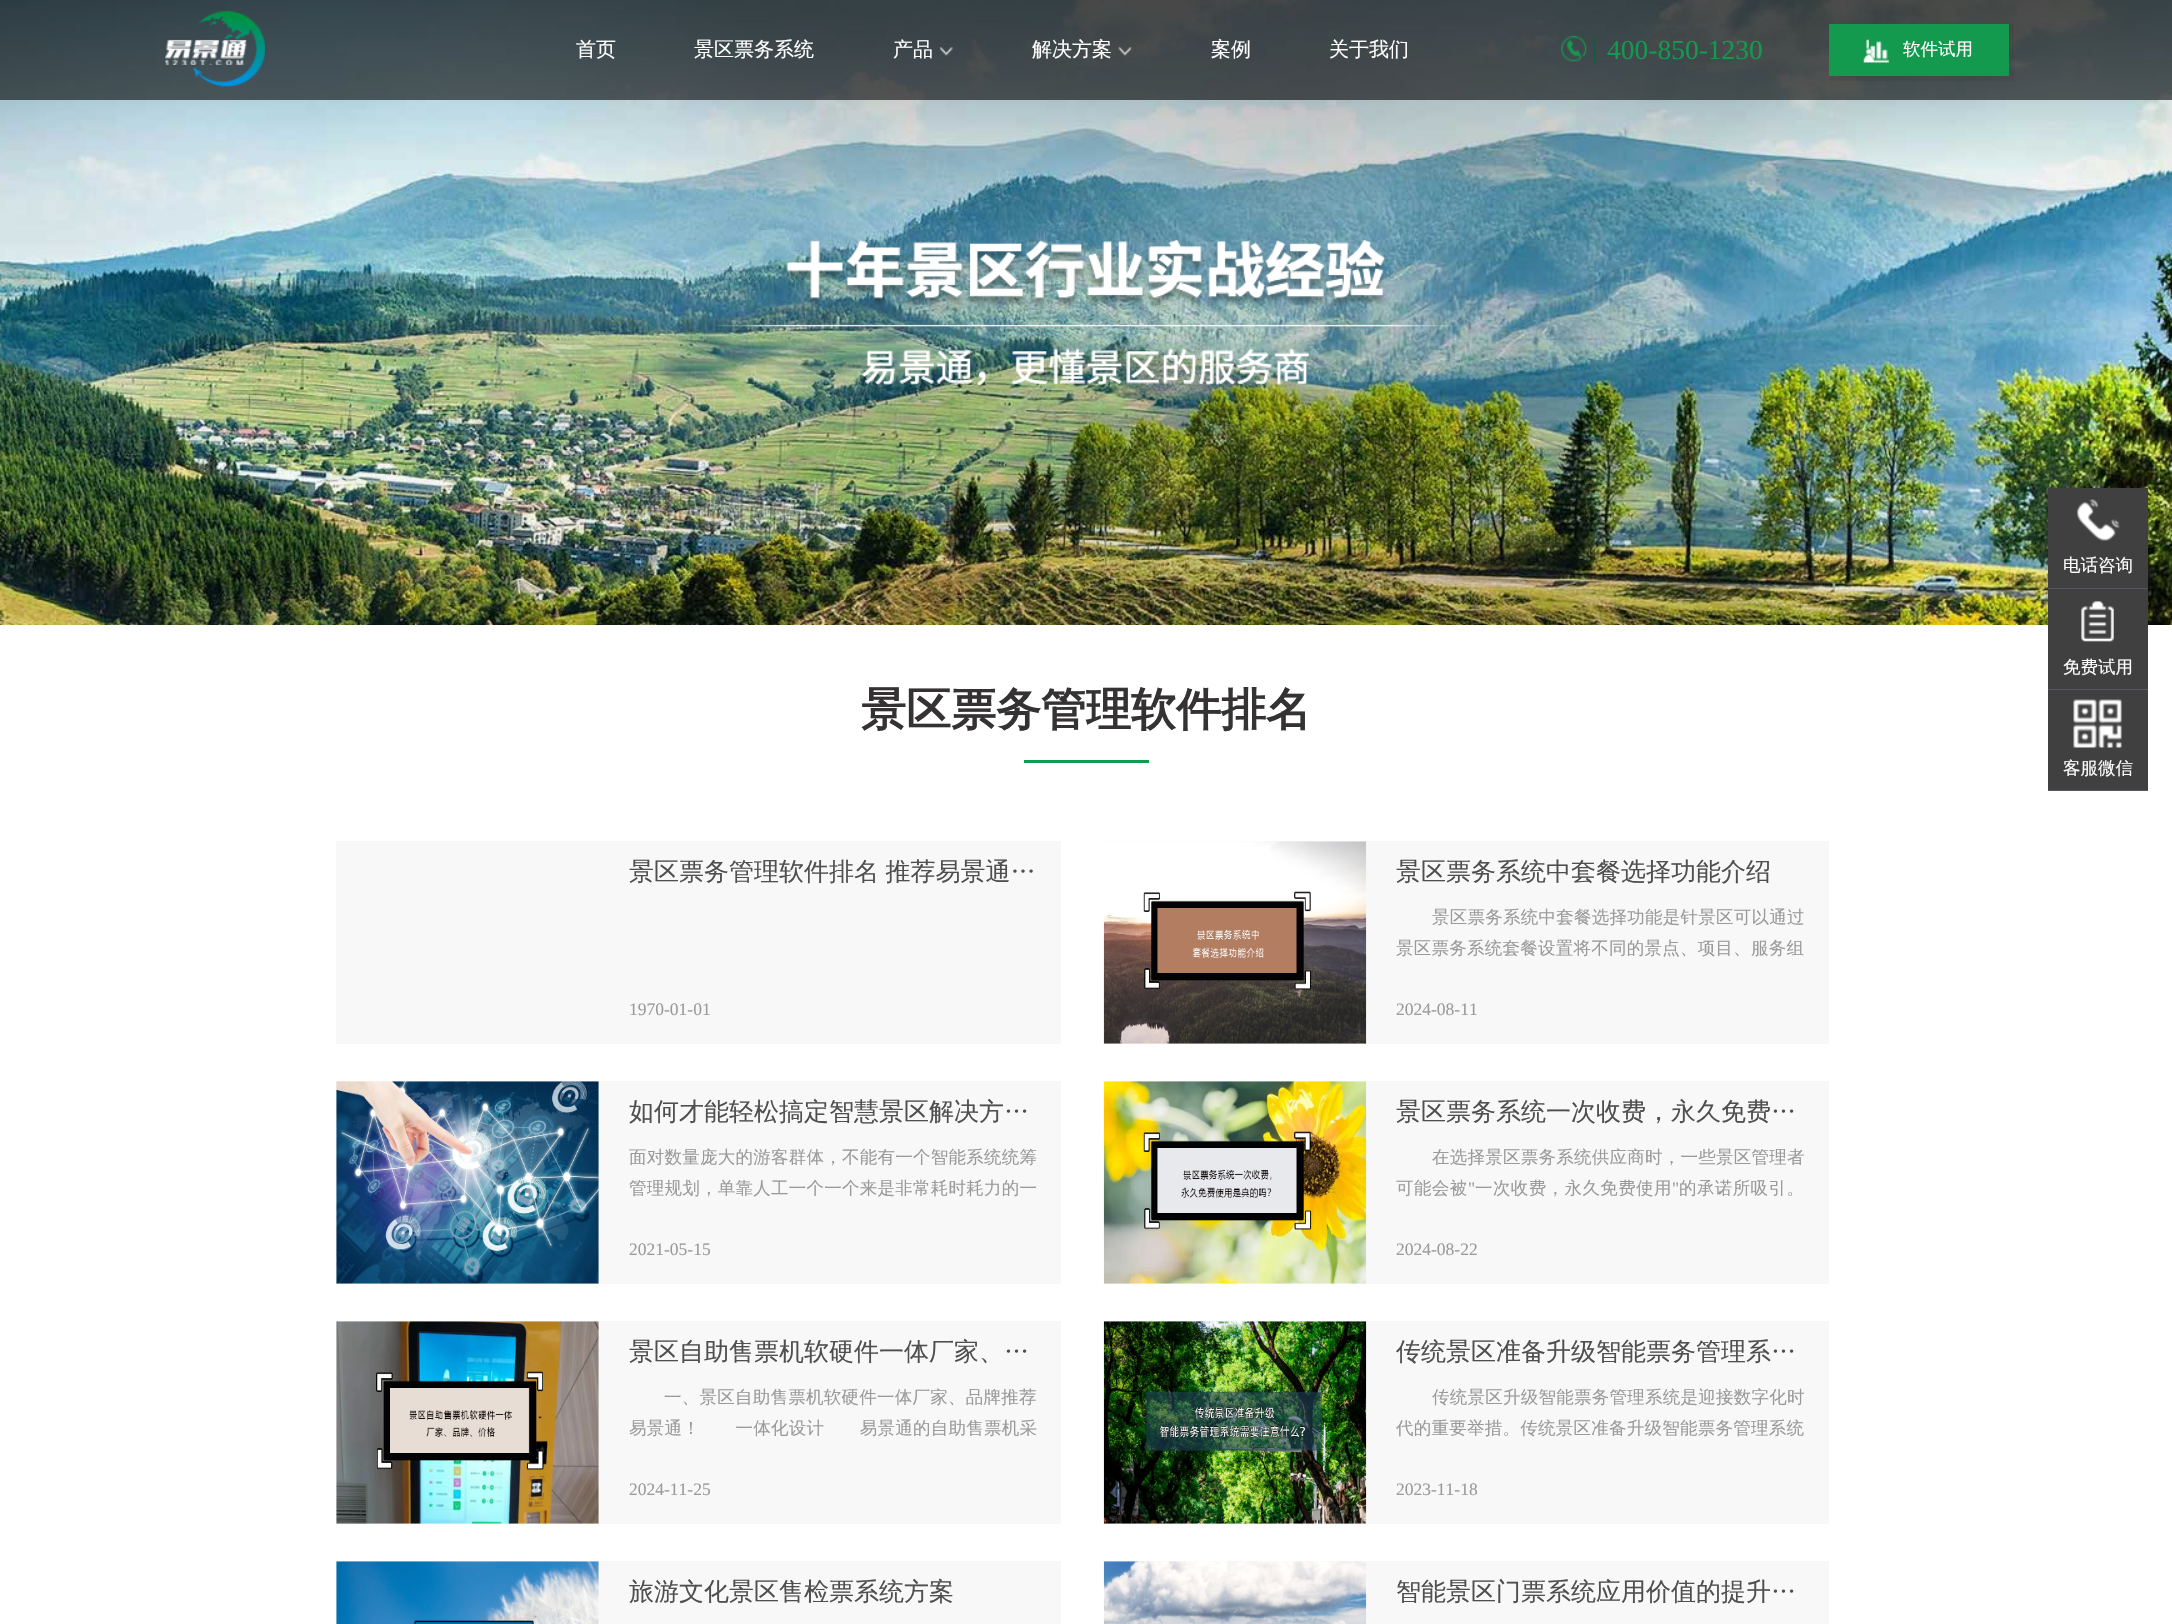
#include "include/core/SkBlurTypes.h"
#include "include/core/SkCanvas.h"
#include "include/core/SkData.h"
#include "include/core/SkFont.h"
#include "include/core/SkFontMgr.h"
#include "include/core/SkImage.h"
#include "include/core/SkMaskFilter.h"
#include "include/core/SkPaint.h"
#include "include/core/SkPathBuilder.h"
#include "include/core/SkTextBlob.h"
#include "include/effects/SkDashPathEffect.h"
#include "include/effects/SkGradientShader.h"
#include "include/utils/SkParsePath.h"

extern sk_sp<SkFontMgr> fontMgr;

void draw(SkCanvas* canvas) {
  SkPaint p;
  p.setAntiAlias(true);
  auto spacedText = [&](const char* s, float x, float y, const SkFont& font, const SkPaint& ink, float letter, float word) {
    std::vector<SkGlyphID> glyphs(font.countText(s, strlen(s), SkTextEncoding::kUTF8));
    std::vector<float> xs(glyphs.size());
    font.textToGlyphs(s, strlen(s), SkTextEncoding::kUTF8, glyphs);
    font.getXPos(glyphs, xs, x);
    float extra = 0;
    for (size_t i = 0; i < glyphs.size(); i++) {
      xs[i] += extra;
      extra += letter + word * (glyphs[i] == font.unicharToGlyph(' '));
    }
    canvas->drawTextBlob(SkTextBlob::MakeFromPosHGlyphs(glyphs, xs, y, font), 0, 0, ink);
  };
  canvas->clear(SK_ColorWHITE);
  canvas->drawImageRect(SkImages::DeferredFromEncodedData(SkData::MakeFromFileName("images/1.png")), SkRect::MakeLTRB(0, 0, 2172, 625), SkSamplingOptions());
  canvas->drawImageRect(SkImages::DeferredFromEncodedData(SkData::MakeFromFileName("images/2.png")), SkRect::MakeLTRB(715, 240, 1457, 385), SkSamplingOptions());
  p.setColor(SkColorSetARGB(153, 0, 0, 0));
  canvas->drawRect(SkRect::MakeLTRB(0, 0, 2172, 100), p);
  canvas->drawImageRect(SkImages::DeferredFromEncodedData(SkData::MakeFromFileName("images/3.png")), SkRect::MakeLTRB(165, 11, 265, 87), SkSamplingOptions());
  canvas->drawImageRect(SkImages::DeferredFromEncodedData(SkData::MakeFromFileName("images/4.png")), SkRect::MakeLTRB(940, 47, 953, 56), SkSamplingOptions());
  canvas->drawImageRect(SkImages::DeferredFromEncodedData(SkData::MakeFromFileName("images/5.png")), SkRect::MakeLTRB(1118, 47, 1132, 56), SkSamplingOptions());
  canvas->drawImageRect(SkImages::DeferredFromEncodedData(SkData::MakeFromFileName("images/6.png")), SkRect::MakeLTRB(1561, 36, 1587, 62), SkSamplingOptions());
  p.setColor(SkColorSetRGB(20, 91, 61));
  canvas->drawRect(SkRect::MakeLTRB(1594, 36, 1595, 64), p);
  p.setColor(SkColorSetARGB(13, 0, 0, 0));
  canvas->drawPath(SkPathBuilder().moveTo(1829, 76).lineTo(1829, 81).lineTo(2014, 81).lineTo(2014, 24).lineTo(2009, 24).lineTo(2009, 76).close().detach(), p);
  p.setColor(SkColorSetRGB(19, 154, 78));
  canvas->drawRect(SkRect::MakeLTRB(1829, 24, 2009, 76), p);
  canvas->drawImageRect(SkImages::DeferredFromEncodedData(SkData::MakeFromFileName("images/7.png")), SkRect::MakeLTRB(1863, 39, 1889, 63), SkSamplingOptions());
  canvas->drawRect(SkRect::MakeLTRB(1024, 760, 1149, 763), p);
  p.setColor(SkColorSetRGB(248, 248, 248));
  canvas->drawRect(SkRect::MakeLTRB(336, 841, 1061, 1044), p);
  canvas->drawRect(SkRect::MakeLTRB(1104, 841, 1829, 1044), p);
  canvas->drawImageRect(SkImages::DeferredFromEncodedData(SkData::MakeFromFileName("images/8.png")), SkRect::MakeLTRB(1103, 841, 1367, 1044), SkSamplingOptions());
  canvas->drawRect(SkRect::MakeLTRB(336, 1081, 1061, 1284), p);
  canvas->drawImageRect(SkImages::DeferredFromEncodedData(SkData::MakeFromFileName("images/9.png")), SkRect::MakeLTRB(336, 1081, 599, 1284), SkSamplingOptions());
  canvas->drawRect(SkRect::MakeLTRB(1104, 1081, 1829, 1284), p);
  canvas->drawImageRect(SkImages::DeferredFromEncodedData(SkData::MakeFromFileName("images/10.png")), SkRect::MakeLTRB(1103, 1081, 1367, 1284), SkSamplingOptions());
  canvas->drawRect(SkRect::MakeLTRB(336, 1321, 1061, 1524), p);
  canvas->drawImageRect(SkImages::DeferredFromEncodedData(SkData::MakeFromFileName("images/11.png")), SkRect::MakeLTRB(336, 1321, 599, 1524), SkSamplingOptions());
  canvas->drawRect(SkRect::MakeLTRB(1104, 1321, 1829, 1524), p);
  canvas->drawImageRect(SkImages::DeferredFromEncodedData(SkData::MakeFromFileName("images/12.png")), SkRect::MakeLTRB(1103, 1321, 1367, 1524), SkSamplingOptions());
  canvas->drawRect(SkRect::MakeLTRB(336, 1561, 1061, 1624), p);
  canvas->drawImageRect(SkImages::DeferredFromEncodedData(SkData::MakeFromFileName("images/13.png")), SkRect::MakeLTRB(336, 1561, 599, 1624), SkSamplingOptions());
  canvas->drawRect(SkRect::MakeLTRB(1104, 1561, 1829, 1624), p);
  canvas->drawImageRect(SkImages::DeferredFromEncodedData(SkData::MakeFromFileName("images/14.png")), SkRect::MakeLTRB(1103, 1561, 1367, 1624), SkSamplingOptions());
  p.setColor(SkColorSetRGB(64, 64, 64));
  canvas->drawRect(SkRect::MakeLTRB(2048, 488, 2148, 588), p);
  canvas->drawImageRect(SkImages::DeferredFromEncodedData(SkData::MakeFromFileName("images/15.png")), SkRect::MakeLTRB(2076, 499, 2120, 541), SkSamplingOptions());
  p.setColor(SkColorSetRGB(85, 86, 102));
  canvas->drawRect(SkRect::MakeLTRB(2048, 588, 2148, 589), p);
  p.setColor(SkColorSetRGB(64, 64, 64));
  canvas->drawRect(SkRect::MakeLTRB(2048, 589, 2148, 689), p);
  canvas->drawImageRect(SkImages::DeferredFromEncodedData(SkData::MakeFromFileName("images/16.png")), SkRect::MakeLTRB(2081, 601, 2114, 642), SkSamplingOptions());
  p.setColor(SkColorSetRGB(85, 86, 102));
  canvas->drawRect(SkRect::MakeLTRB(2048, 689, 2148, 690), p);
  p.setColor(SkColorSetRGB(64, 64, 64));
  canvas->drawRect(SkRect::MakeLTRB(2048, 690, 2148, 790), p);
  canvas->drawImageRect(SkImages::DeferredFromEncodedData(SkData::MakeFromFileName("images/17.png")), SkRect::MakeLTRB(2073, 699, 2122, 748), SkSamplingOptions());
  p.setColor(SkColorSetRGB(85, 86, 102));
  canvas->drawRect(SkRect::MakeLTRB(2048, 790, 2148, 791), p);
  SkFont font1(fontMgr->matchFamilyStyle("WenQuanYi Zen Hei", SkFontStyle(500, SkFontStyle::kNormal_Width, SkFontStyle::kUpright_Slant)), 20);
  font1.setSubpixel(true);
  p.setColor(SK_ColorWHITE);
  canvas->drawString("首页", 576, 56, font1, p);
  canvas->drawString("景区票务系统", 694, 56, font1, p);
  canvas->drawString("产品", 893, 56, font1, p);
  canvas->drawString("解决方案", 1032, 56, font1, p);
  canvas->drawString("案例", 1211, 56, font1, p);
  canvas->drawString("关于我们", 1329, 56, font1, p);
  SkFont font2(fontMgr->matchFamilyStyle("Liberation Serif", SkFontStyle::Normal()), 27.5f);
  font2.setSubpixel(true);
  p.setColor(SkColorSetRGB(19, 154, 78));
  canvas->drawString("400-850-1230", 1607, 59, font2, p);
  SkFont font3(fontMgr->matchFamilyStyle("WenQuanYi Zen Hei", SkFontStyle(500, SkFontStyle::kNormal_Width, SkFontStyle::kUpright_Slant)), 17.5f);
  font3.setSubpixel(true);
  p.setColor(SK_ColorWHITE);
  canvas->drawString("软件试用", 1903, 55, font3, p);
  SkFont font4(fontMgr->matchFamilyStyle("WenQuanYi Zen Hei", SkFontStyle::Bold()), 45);
  font4.setSubpixel(true);
  p.setColor(SkColorSetRGB(52, 50, 51));
  canvas->drawString("景区票务管理软件排名", 861, 725, font4, p);
  SkFont font5(fontMgr->matchFamilyStyle("WenQuanYi Zen Hei", SkFontStyle(500, SkFontStyle::kNormal_Width, SkFontStyle::kUpright_Slant)), 25);
  font5.setSubpixel(true);
  p.setColor(SkColorSetRGB(79, 79, 79));
  spacedText("景区票务管理软件排名 推荐易景通…", 629, 880, font5, p, 0, -1);
  SkFont font6(fontMgr->matchFamilyStyle("Liberation Serif", SkFontStyle::Normal()), 17.5f);
  font6.setSubpixel(true);
  p.setColor(SkColorSetRGB(154, 154, 154));
  canvas->drawString("1970-01-01", 629, 1015, font6, p);
  p.setColor(SkColorSetRGB(79, 79, 79));
  canvas->drawString("景区票务系统中套餐选择功能介绍", 1396, 880, font5, p);
  p.setColor(SkColorSetRGB(154, 154, 154));
  spacedText("景区票务系统中套餐选择功能是针景区可以通过", 1432, 923, font3, p, 0.25f, 0);
  spacedText("景区票务系统套餐设置将不同的景点、项目、服务组", 1396, 954, font3, p, 0.25f, 0);
  canvas->drawString("2024-08-11", 1396, 1015, font6, p);
  p.setColor(SkColorSetRGB(79, 79, 79));
  canvas->drawString("如何才能轻松搞定智慧景区解决方…", 629, 1120, font5, p);
  p.setColor(SkColorSetRGB(154, 154, 154));
  spacedText("面对数量庞大的游客群体，不能有一个智能系统统筹", 629, 1163, font3, p, 0.25f, 0);
  spacedText("管理规划，单靠人工一个一个来是非常耗时耗力的一", 629, 1194, font3, p, 0.25f, 0);
  canvas->drawString("2021-05-15", 629, 1255, font6, p);
  p.setColor(SkColorSetRGB(79, 79, 79));
  canvas->drawString("景区票务系统一次收费，永久免费…", 1396, 1120, font5, p);
  p.setColor(SkColorSetRGB(154, 154, 154));
  spacedText("在选择景区票务系统供应商时，一些景区管理者", 1432, 1163, font3, p, 0.25f, 0);
  spacedText("可能会被", 1396, 1194, font3, p, 0.4f, 0);
  spacedText("\"", 1468, 1194, font6, p, 0.4f, 0);
  spacedText("一次收费，永久免费使用", 1475, 1194, font3, p, 0.4f, 0);
  spacedText("\"", 1672, 1194, font6, p, 0.4f, 0);
  spacedText("的承诺所吸引。", 1679, 1194, font3, p, 0.4f, 0);
  canvas->drawString("2024-08-22", 1396, 1255, font6, p);
  p.setColor(SkColorSetRGB(79, 79, 79));
  canvas->drawString("景区自助售票机软硬件一体厂家、…", 629, 1360, font5, p);
  p.setColor(SkColorSetRGB(154, 154, 154));
  spacedText("一、景区自助售票机软硬件一体厂家、品牌推荐", 664, 1403, font3, p, 0.25f, 0);
  spacedText("易景通！　　一体化设计　　易景通的自助售票机采", 629, 1434, font3, p, 0.25f, 0);
  canvas->drawString("2024-11-25", 629, 1495, font6, p);
  p.setColor(SkColorSetRGB(79, 79, 79));
  canvas->drawString("传统景区准备升级智能票务管理系…", 1396, 1360, font5, p);
  p.setColor(SkColorSetRGB(154, 154, 154));
  spacedText("传统景区升级智能票务管理系统是迎接数字化时", 1432, 1403, font3, p, 0.25f, 0);
  spacedText("代的重要举措。传统景区准备升级智能票务管理系统", 1396, 1434, font3, p, 0.25f, 0);
  canvas->drawString("2023-11-18", 1396, 1495, font6, p);
  p.setColor(SkColorSetRGB(79, 79, 79));
  canvas->drawString("旅游文化景区售检票系统方案", 629, 1600, font5, p);
  canvas->drawString("智能景区门票系统应用价值的提升…", 1396, 1600, font5, p);
  p.setColor(SK_ColorWHITE);
  canvas->drawString("电话咨询", 2063, 571, font3, p);
  canvas->drawString("免费试用", 2063, 673, font3, p);
  canvas->drawString("客服微信", 2063, 774, font3, p);
}
